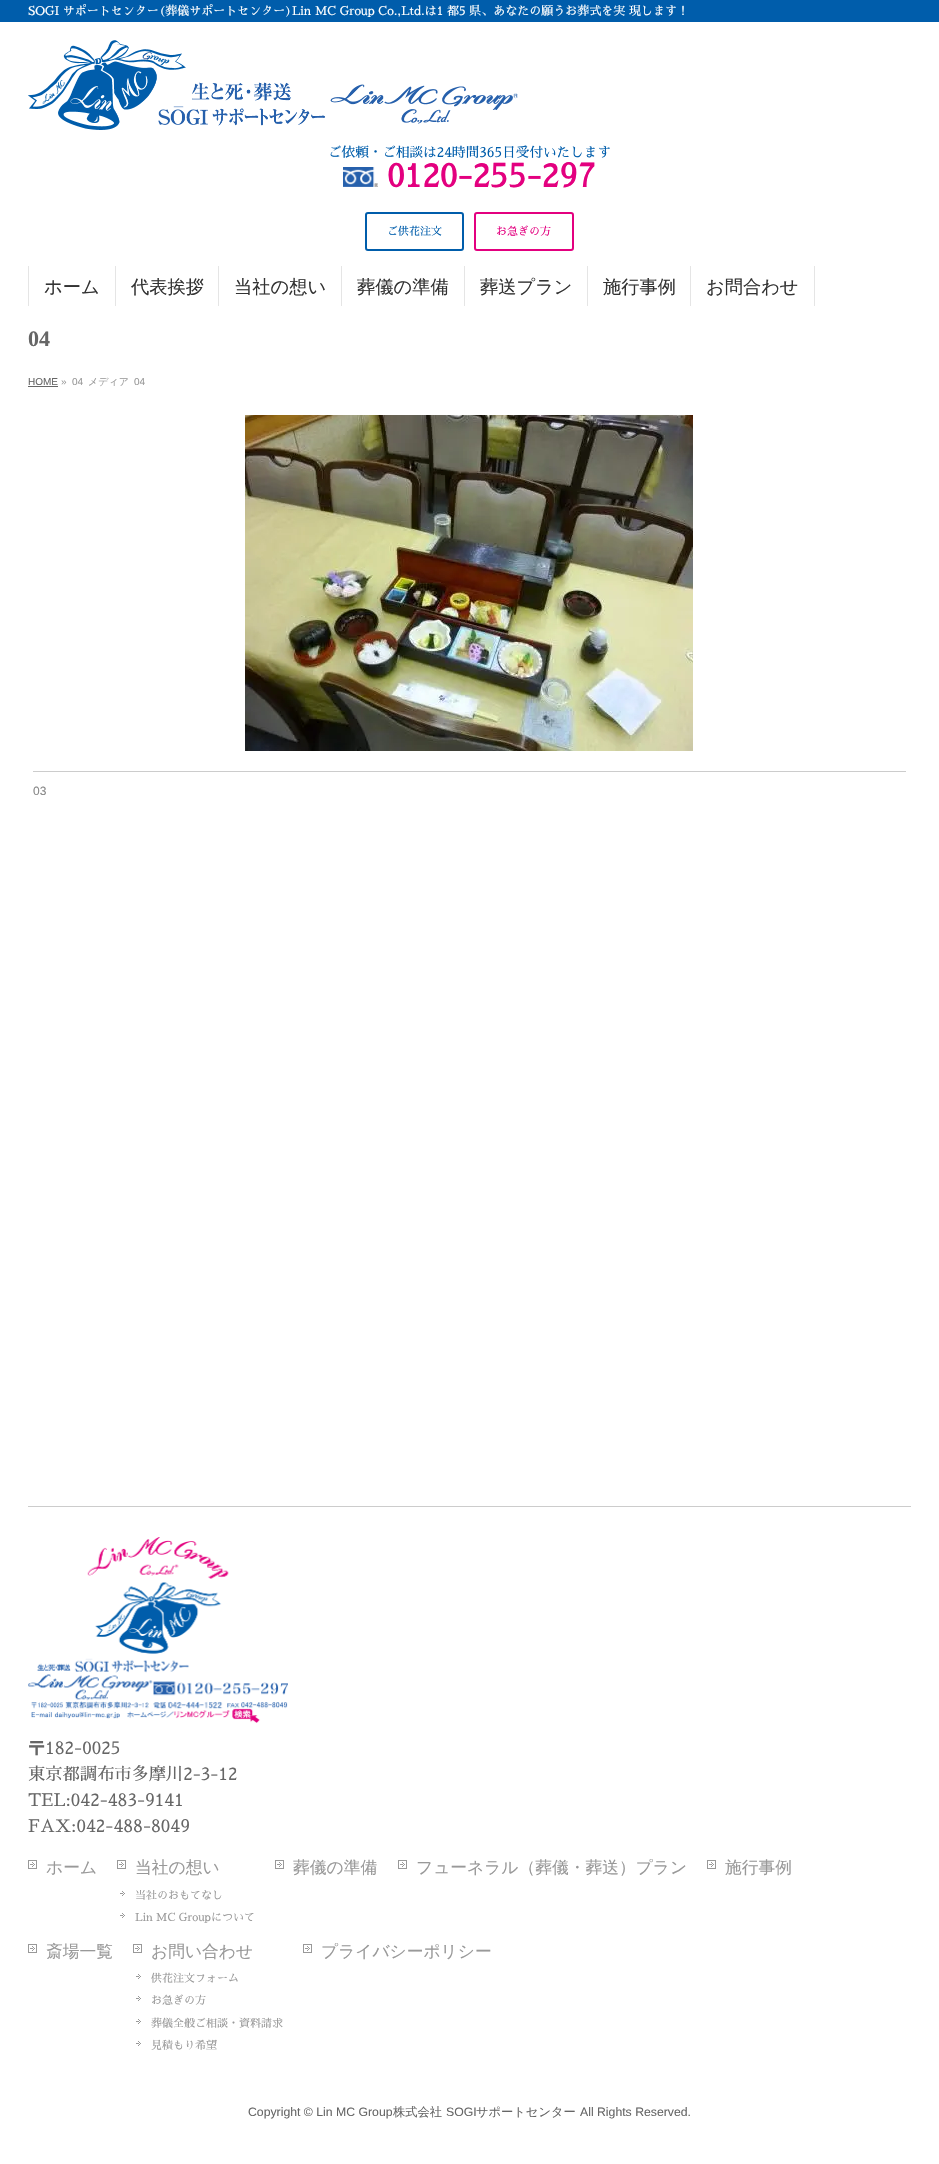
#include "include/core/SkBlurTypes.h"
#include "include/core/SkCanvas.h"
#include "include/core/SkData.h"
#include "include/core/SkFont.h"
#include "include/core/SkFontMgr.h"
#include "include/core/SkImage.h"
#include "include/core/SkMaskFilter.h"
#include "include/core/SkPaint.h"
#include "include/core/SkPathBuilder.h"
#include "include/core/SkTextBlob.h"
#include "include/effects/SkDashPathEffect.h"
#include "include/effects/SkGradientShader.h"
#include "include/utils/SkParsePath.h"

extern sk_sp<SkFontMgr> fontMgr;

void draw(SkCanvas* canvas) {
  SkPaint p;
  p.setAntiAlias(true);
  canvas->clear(SK_ColorWHITE);
  p.setColor(SkColorSetRGB(0, 93, 171));
  canvas->drawRect(SkRect::MakeLTRB(0, 0, 939, 22), p);
  canvas->drawImageRect(SkImages::DeferredFromEncodedData(SkData::MakeFromFileName("images/1.png")), SkRect::MakeLTRB(28, 40, 518, 130), SkSamplingOptions());
  canvas->drawImageRect(SkImages::DeferredFromEncodedData(SkData::MakeFromFileName("images/2.png")), SkRect::MakeLTRB(343, 167, 378, 187), SkSamplingOptions());
  p.setStyle(SkPaint::kStroke_Style);
  p.setStrokeWidth(2);
  canvas->drawRoundRect(SkRect::MakeLTRB(366, 213, 463, 250), 2, 2, p);
  p.setColor(SkColorSetRGB(227, 0, 127));
  canvas->drawRoundRect(SkRect::MakeLTRB(475, 213, 573, 250), 2, 2, p);
  p.setStyle(SkPaint::kFill_Style);
  p.setColor(SkColorSetRGB(229, 229, 229));
  canvas->drawRect(SkRect::MakeLTRB(28, 266, 29, 306), p);
  canvas->drawRect(SkRect::MakeLTRB(115, 266, 116, 306), p);
  canvas->drawRect(SkRect::MakeLTRB(218, 266, 219, 306), p);
  canvas->drawRect(SkRect::MakeLTRB(341, 266, 342, 306), p);
  canvas->drawRect(SkRect::MakeLTRB(464, 266, 465, 306), p);
  canvas->drawRect(SkRect::MakeLTRB(587, 266, 588, 306), p);
  canvas->drawRect(SkRect::MakeLTRB(690, 266, 691, 306), p);
  canvas->drawRect(SkRect::MakeLTRB(814, 266, 815, 306), p);
  p.setColor(SkColorSetRGB(102, 102, 102));
  canvas->drawRect(SkRect::MakeLTRB(28, 386, 58, 387), p);
  canvas->drawImageRect(SkImages::DeferredFromEncodedData(SkData::MakeFromFileName("images/3.png")), SkRect::MakeLTRB(245, 415, 693, 751), SkSamplingOptions());
  p.setColor(SkColorSetRGB(204, 204, 204));
  canvas->drawRect(SkRect::MakeLTRB(33, 771, 906, 772), p);
  canvas->drawRect(SkRect::MakeLTRB(28, 1506, 911, 1507), p);
  canvas->drawImageRect(SkImages::DeferredFromEncodedData(SkData::MakeFromFileName("images/4.png")), SkRect::MakeLTRB(28, 1537, 288, 1723), SkSamplingOptions());
  canvas->drawImageRect(SkImages::DeferredFromEncodedData(SkData::MakeFromFileName("images/5.png")), SkRect::MakeLTRB(28, 1860, 37, 1869), SkSamplingOptions());
  canvas->drawImageRect(SkImages::DeferredFromEncodedData(SkData::MakeFromFileName("images/5.png")), SkRect::MakeLTRB(117, 1860, 126, 1869), SkSamplingOptions());
  canvas->drawImageRect(SkImages::DeferredFromEncodedData(SkData::MakeFromFileName("images/6.png")), SkRect::MakeLTRB(120, 1891, 125, 1896), SkSamplingOptions());
  canvas->drawImageRect(SkImages::DeferredFromEncodedData(SkData::MakeFromFileName("images/6.png")), SkRect::MakeLTRB(120, 1913, 125, 1918), SkSamplingOptions());
  canvas->drawImageRect(SkImages::DeferredFromEncodedData(SkData::MakeFromFileName("images/5.png")), SkRect::MakeLTRB(275, 1860, 284, 1869), SkSamplingOptions());
  canvas->drawImageRect(SkImages::DeferredFromEncodedData(SkData::MakeFromFileName("images/5.png")), SkRect::MakeLTRB(398, 1860, 407, 1869), SkSamplingOptions());
  canvas->drawImageRect(SkImages::DeferredFromEncodedData(SkData::MakeFromFileName("images/5.png")), SkRect::MakeLTRB(707, 1860, 716, 1869), SkSamplingOptions());
  canvas->drawImageRect(SkImages::DeferredFromEncodedData(SkData::MakeFromFileName("images/5.png")), SkRect::MakeLTRB(28, 1944, 37, 1953), SkSamplingOptions());
  canvas->drawImageRect(SkImages::DeferredFromEncodedData(SkData::MakeFromFileName("images/5.png")), SkRect::MakeLTRB(133, 1944, 142, 1953), SkSamplingOptions());
  canvas->drawImageRect(SkImages::DeferredFromEncodedData(SkData::MakeFromFileName("images/6.png")), SkRect::MakeLTRB(136, 1974, 141, 1979), SkSamplingOptions());
  canvas->drawImageRect(SkImages::DeferredFromEncodedData(SkData::MakeFromFileName("images/6.png")), SkRect::MakeLTRB(136, 1996, 141, 2001), SkSamplingOptions());
  canvas->drawImageRect(SkImages::DeferredFromEncodedData(SkData::MakeFromFileName("images/6.png")), SkRect::MakeLTRB(136, 2019, 141, 2024), SkSamplingOptions());
  canvas->drawImageRect(SkImages::DeferredFromEncodedData(SkData::MakeFromFileName("images/6.png")), SkRect::MakeLTRB(136, 2041, 141, 2046), SkSamplingOptions());
  canvas->drawImageRect(SkImages::DeferredFromEncodedData(SkData::MakeFromFileName("images/5.png")), SkRect::MakeLTRB(303, 1944, 312, 1953), SkSamplingOptions());
  SkFont font1(fontMgr->matchFamilyStyle("Sawarabi Mincho", SkFontStyle::Normal()), 12);
  font1.setSubpixel(true);
  p.setColor(SK_ColorWHITE);
  canvas->drawString("SOGI サポートセンター(葬儀サポートセンター)Lin MC Group Co.,Ltd.は1 都5 県、あなたの願うお葬式を実 現します！", 28, 15, font1, p);
  SkFont font2(fontMgr->matchFamilyStyle("Sawarabi Mincho", SkFontStyle::Normal()), 13.6f);
  font2.setSubpixel(true);
  p.setColor(SkColorSetRGB(0, 93, 171));
  canvas->drawString("ご依頼・ご相談は24時間365日受付いたします", 328, 157, font2, p);
  SkFont font3(fontMgr->matchFamilyStyle("Sawarabi Mincho", SkFontStyle::Bold()), 32);
  font3.setSubpixel(true);
  p.setColor(SkColorSetRGB(227, 0, 127));
  canvas->drawString("0120-255-297", 387, 187, font3, p);
  SkFont font4(fontMgr->matchFamilyStyle("Sawarabi Mincho", SkFontStyle::Normal()), 11);
  font4.setSubpixel(true);
  p.setColor(SkColorSetRGB(0, 93, 171));
  canvas->drawString("ご供花注文", 387, 235, font4, p);
  p.setColor(SkColorSetRGB(227, 0, 127));
  canvas->drawString("お急ぎの方", 496, 235, font4, p);
  SkFont font5(fontMgr->matchFamilyStyle("WenQuanYi Zen Hei", SkFontStyle(500, SkFontStyle::kNormal_Width, SkFontStyle::kUpright_Slant)), 18.25f);
  font5.setSubpixel(true);
  p.setColor(SkColorSetRGB(51, 51, 51));
  canvas->drawString("ホーム", 44, 293, font5, p);
  canvas->drawString("代表挨拶", 131, 293, font5, p);
  canvas->drawString("当社の想い", 234, 293, font5, p);
  canvas->drawString("葬儀の準備", 357, 293, font5, p);
  canvas->drawString("葬送プラン", 480, 293, font5, p);
  canvas->drawString("施行事例", 603, 293, font5, p);
  canvas->drawString("お問合わせ", 706, 293, font5, p);
  SkFont font6(fontMgr->matchFamilyStyle("Liberation Serif", SkFontStyle::Bold()), 22);
  font6.setSubpixel(true);
  p.setColor(SkColorSetRGB(102, 102, 102));
  canvas->drawString("04", 28, 346, font6, p);
  SkFont font7(fontMgr->matchFamilyStyle("Liberation Sans", SkFontStyle::Normal()), 10);
  font7.setSubpixel(true);
  canvas->drawString("HOME", 28, 385, font7, p);
  p.setColor(SkColorSetRGB(153, 153, 153));
  canvas->drawString("»", 61, 385, font7, p);
  canvas->drawString("04", 72, 385, font7, p);
  SkFont font8(fontMgr->matchFamilyStyle("WenQuanYi Zen Hei", SkFontStyle(500, SkFontStyle::kNormal_Width, SkFontStyle::kUpright_Slant)), 10);
  font8.setSubpixel(true);
  canvas->drawString("メディア", 88, 385, font8, p);
  canvas->drawString("04", 134, 385, font7, p);
  SkFont font9(fontMgr->matchFamilyStyle("Liberation Sans", SkFontStyle::Normal()), 12);
  font9.setSubpixel(true);
  p.setColor(SkColorSetRGB(136, 136, 136));
  canvas->drawString("03", 33, 795, font9, p);
  SkFont font10(fontMgr->matchFamilyStyle("Sawarabi Mincho", SkFontStyle::Normal()), 17.25f);
  font10.setSubpixel(true);
  p.setColor(SkColorSetRGB(102, 102, 102));
  canvas->drawString("〒182-0025", 28, 1754, font10, p);
  canvas->drawString("東京都調布市多摩川2-3-12", 28, 1780, font10, p);
  canvas->drawString("TEL:042-483-9141", 28, 1806, font10, p);
  canvas->drawString("FAX:042-488-8049", 28, 1832, font10, p);
  SkFont font11(fontMgr->matchFamilyStyle("WenQuanYi Zen Hei", SkFontStyle(500, SkFontStyle::kNormal_Width, SkFontStyle::kUpright_Slant)), 16.75f);
  font11.setSubpixel(true);
  p.setColor(SkColorSetRGB(153, 153, 153));
  canvas->drawString("ホーム", 46, 1873, font11, p);
  canvas->drawString("当社の想い", 135, 1873, font11, p);
  canvas->drawString("当社のおもてなし", 135, 1899, font4, p);
  canvas->drawString("Lin MC Groupについて", 135, 1921, font4, p);
  canvas->drawString("葬儀の準備", 293, 1873, font11, p);
  canvas->drawString("フューネラル（葬儀・葬送）プラン", 416, 1873, font11, p);
  canvas->drawString("施行事例", 725, 1873, font11, p);
  canvas->drawString("斎場一覧", 46, 1957, font11, p);
  canvas->drawString("お問い合わせ", 151, 1957, font11, p);
  canvas->drawString("供花注文フォーム", 151, 1982, font4, p);
  canvas->drawString("お急ぎの方", 151, 2004, font4, p);
  canvas->drawString("葬儀全般ご相談・資料請求", 151, 2027, font4, p);
  canvas->drawString("見積もり希望", 151, 2049, font4, p);
  canvas->drawString("プライバシーポリシー", 321, 1957, font11, p);
  SkFont font12(fontMgr->matchFamilyStyle("Liberation Sans", SkFontStyle::Normal()), 12.25f);
  font12.setSubpixel(true);
  p.setColor(SkColorSetRGB(102, 102, 102));
  canvas->drawString("Copyright © Lin MC Group", 248, 2116, font12, p);
  SkFont font13(fontMgr->matchFamilyStyle("WenQuanYi Zen Hei", SkFontStyle(500, SkFontStyle::kNormal_Width, SkFontStyle::kUpright_Slant)), 12.25f);
  font13.setSubpixel(true);
  canvas->drawString("株式会社", 393, 2116, font13, p);
  canvas->drawString("SOGI", 446, 2116, font12, p);
  canvas->drawString("サポートセンター", 476, 2116, font13, p);
  canvas->drawString("All Rights Reserved.", 580, 2116, font12, p);
}
